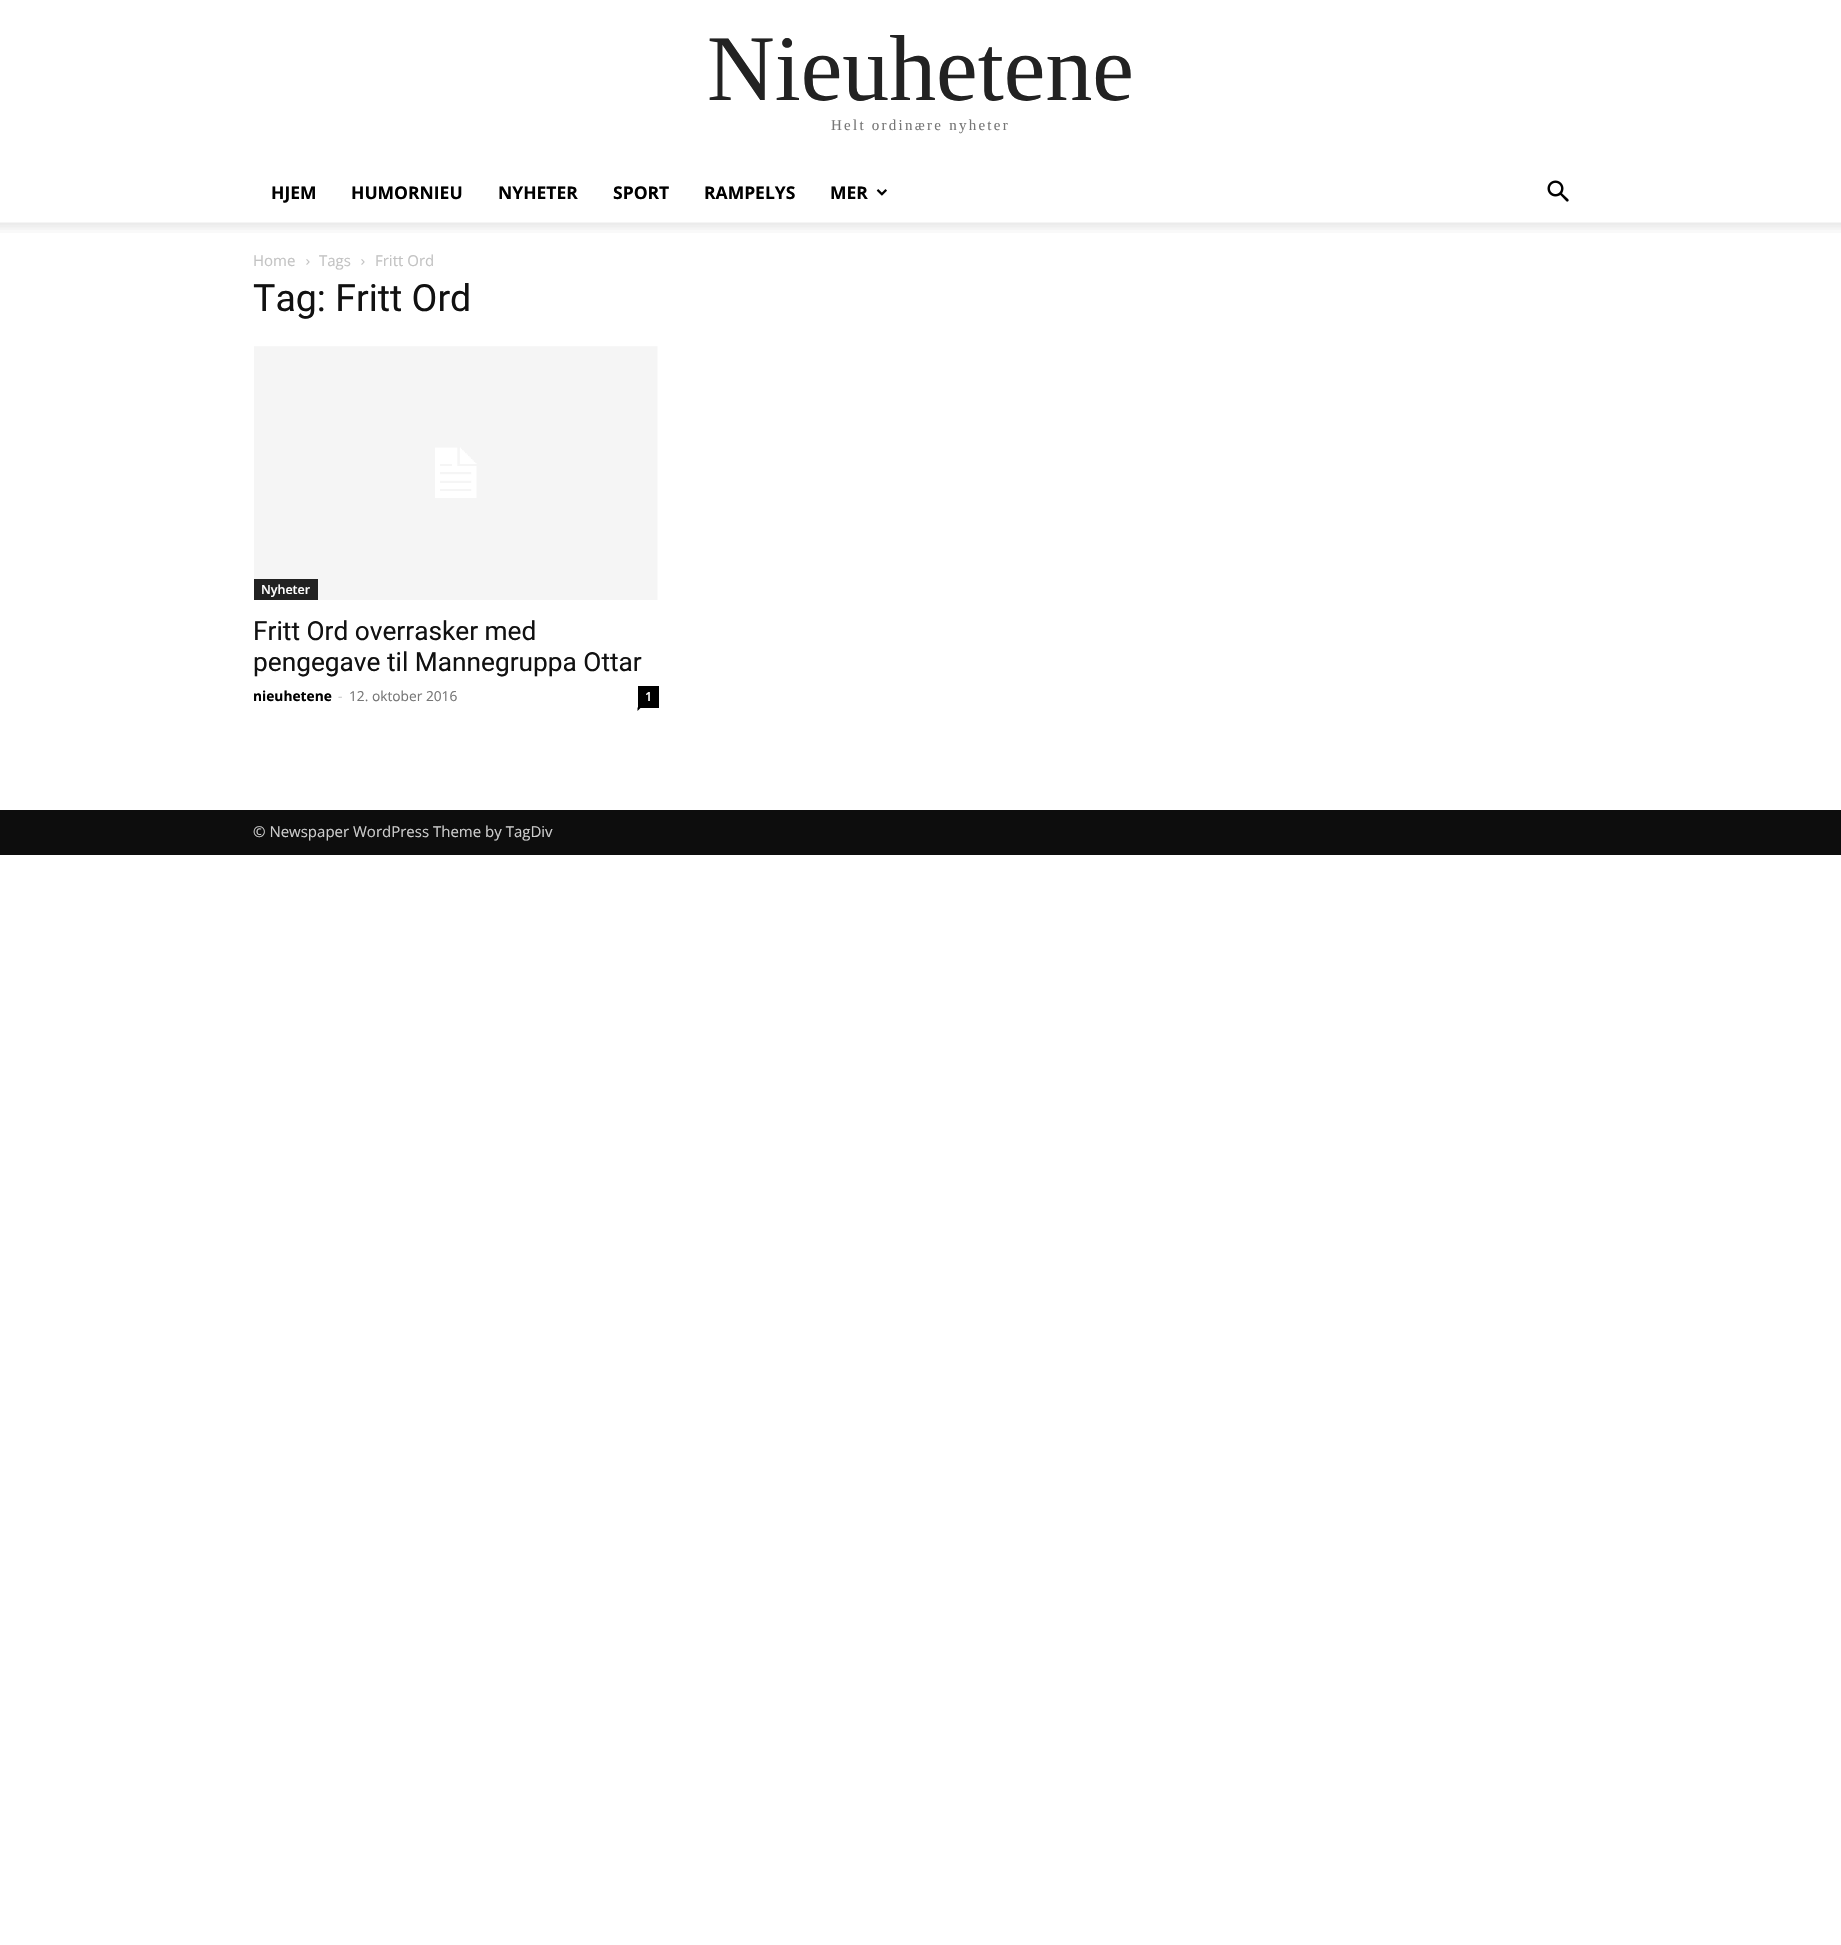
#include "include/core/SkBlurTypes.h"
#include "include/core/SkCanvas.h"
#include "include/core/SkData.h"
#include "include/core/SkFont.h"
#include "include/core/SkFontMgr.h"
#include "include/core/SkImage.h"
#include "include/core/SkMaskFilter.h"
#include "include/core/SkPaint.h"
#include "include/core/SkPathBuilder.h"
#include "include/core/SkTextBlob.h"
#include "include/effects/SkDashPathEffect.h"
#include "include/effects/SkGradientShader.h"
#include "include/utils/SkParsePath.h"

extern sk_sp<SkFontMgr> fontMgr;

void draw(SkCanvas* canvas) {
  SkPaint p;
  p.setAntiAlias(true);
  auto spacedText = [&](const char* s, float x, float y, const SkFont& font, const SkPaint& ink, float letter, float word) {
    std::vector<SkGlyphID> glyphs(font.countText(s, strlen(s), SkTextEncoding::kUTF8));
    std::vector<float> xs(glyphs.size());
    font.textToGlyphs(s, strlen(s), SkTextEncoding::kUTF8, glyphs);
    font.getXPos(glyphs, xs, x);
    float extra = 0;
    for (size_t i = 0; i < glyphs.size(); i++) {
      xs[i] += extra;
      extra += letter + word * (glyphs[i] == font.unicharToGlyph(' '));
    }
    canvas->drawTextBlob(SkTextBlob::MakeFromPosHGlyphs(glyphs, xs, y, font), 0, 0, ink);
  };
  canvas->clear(SK_ColorWHITE);
  canvas->drawImageRect(SkImages::DeferredFromEncodedData(SkData::MakeFromFileName("images/1.png")), SkRect::MakeLTRB(876, 189, 887, 196), SkSamplingOptions());
  canvas->drawImageRect(SkImages::DeferredFromEncodedData(SkData::MakeFromFileName("images/2.png")), SkRect::MakeLTRB(1547, 180, 1569, 202), SkSamplingOptions());
  canvas->drawImageRect(SkImages::DeferredFromEncodedData(SkData::MakeFromFileName("images/3.png")), SkRect::MakeLTRB(0, 222, 1841, 233), SkSamplingOptions());
  canvas->drawImageRect(SkImages::DeferredFromEncodedData(SkData::MakeFromFileName("images/4.png")), SkRect::MakeLTRB(306, 259, 310, 265), SkSamplingOptions());
  canvas->drawImageRect(SkImages::DeferredFromEncodedData(SkData::MakeFromFileName("images/4.png")), SkRect::MakeLTRB(361, 259, 365, 265), SkSamplingOptions());
  canvas->drawImageRect(SkImages::DeferredFromEncodedData(SkData::MakeFromFileName("images/5.png")), SkRect::MakeLTRB(254, 346, 658, 600), SkSamplingOptions());
  p.setColor(SkColorSetRGB(34, 34, 34));
  canvas->drawRect(SkRect::MakeLTRB(254, 579, 318, 600), p);
  p.setColor(SK_ColorBLACK);
  canvas->drawRect(SkRect::MakeLTRB(638, 686, 659, 708), p);
  canvas->drawPath(SkPathBuilder().moveTo(637.5f, 707.5f).lineTo(641, 707.5f).lineTo(637.5f, 711).close().detach(), p);
  p.setColor(SkColorSetRGB(13, 13, 13));
  canvas->drawRect(SkRect::MakeLTRB(0, 810, 1841, 855), p);
  SkFont font1(fontMgr->matchFamilyStyle("Liberation Serif", SkFontStyle::Normal()), 93.75f);
  font1.setSubpixel(true);
  p.setColor(SkColorSetRGB(34, 34, 34));
  canvas->drawString("Nieuhetene", 707, 100, font1, p);
  SkFont font2(fontMgr->matchFamilyStyle("Liberation Serif", SkFontStyle::Normal()), 15);
  font2.setSubpixel(true);
  p.setColor(SkColorSetRGB(118, 118, 118));
  spacedText("Helt ordinære nyheter", 831, 130, font2, p, 2.25f, 0);
  SkFont font3(fontMgr->matchFamilyStyle("Open Sans", SkFontStyle::Bold()), 17.5f);
  font3.setSubpixel(true);
  p.setColor(SK_ColorBLACK);
  canvas->drawString("HJEM", 271, 199, font3, p);
  canvas->drawString("HUMORNIEU", 351, 199, font3, p);
  canvas->drawString("NYHETER", 498, 199, font3, p);
  canvas->drawString("SPORT", 613, 199, font3, p);
  canvas->drawString("RAMPELYS", 704, 199, font3, p);
  canvas->drawString("MER", 830, 199, font3, p);
  SkFont font4(fontMgr->matchFamilyStyle("Open Sans", SkFontStyle::Normal()), 15);
  font4.setSubpixel(true);
  p.setColor(SkColorSetRGB(195, 195, 195));
  canvas->drawString("Home", 253, 266, font4, p);
  canvas->drawString("Tags", 319, 266, font4, p);
  canvas->drawString("Fritt Ord", 375, 266, font4, p);
  SkFont font5(fontMgr->matchFamilyStyle("Roboto", SkFontStyle::Normal()), 37.5f);
  font5.setSubpixel(true);
  p.setColor(SkColorSetRGB(17, 17, 17));
  canvas->drawString("Tag: Fritt Ord", 253, 311, font5, p);
  SkFont font6(fontMgr->matchFamilyStyle("Open Sans", SkFontStyle(600, SkFontStyle::kNormal_Width, SkFontStyle::kUpright_Slant)), 12.5f);
  font6.setSubpixel(true);
  p.setColor(SK_ColorWHITE);
  canvas->drawString("Nyheter", 261, 594, font6, p);
  SkFont font7(fontMgr->matchFamilyStyle("Roboto", SkFontStyle::Normal()), 26.25f);
  font7.setSubpixel(true);
  p.setColor(SkColorSetRGB(17, 17, 17));
  canvas->drawString("Fritt Ord overrasker med", 253, 640, font7, p);
  canvas->drawString("pengegave til Mannegruppa Ottar", 253, 671, font7, p);
  SkFont font8(fontMgr->matchFamilyStyle("Open Sans", SkFontStyle::Bold()), 13.75f);
  font8.setSubpixel(true);
  p.setColor(SK_ColorBLACK);
  canvas->drawString("nieuhetene", 253, 701, font8, p);
  SkFont font9(fontMgr->matchFamilyStyle("Open Sans", SkFontStyle::Normal()), 13.75f);
  font9.setSubpixel(true);
  p.setColor(SkColorSetRGB(204, 204, 204));
  canvas->drawString("-", 338, 701, font9, p);
  p.setColor(SkColorSetRGB(118, 118, 118));
  canvas->drawString("12. oktober 2016", 349, 701, font9, p);
  p.setColor(SK_ColorWHITE);
  canvas->drawString("1", 645, 701, font6, p);
  p.setColor(SkColorSetRGB(204, 204, 204));
  canvas->drawString("© Newspaper WordPress Theme by TagDiv", 253, 837, font4, p);
}
